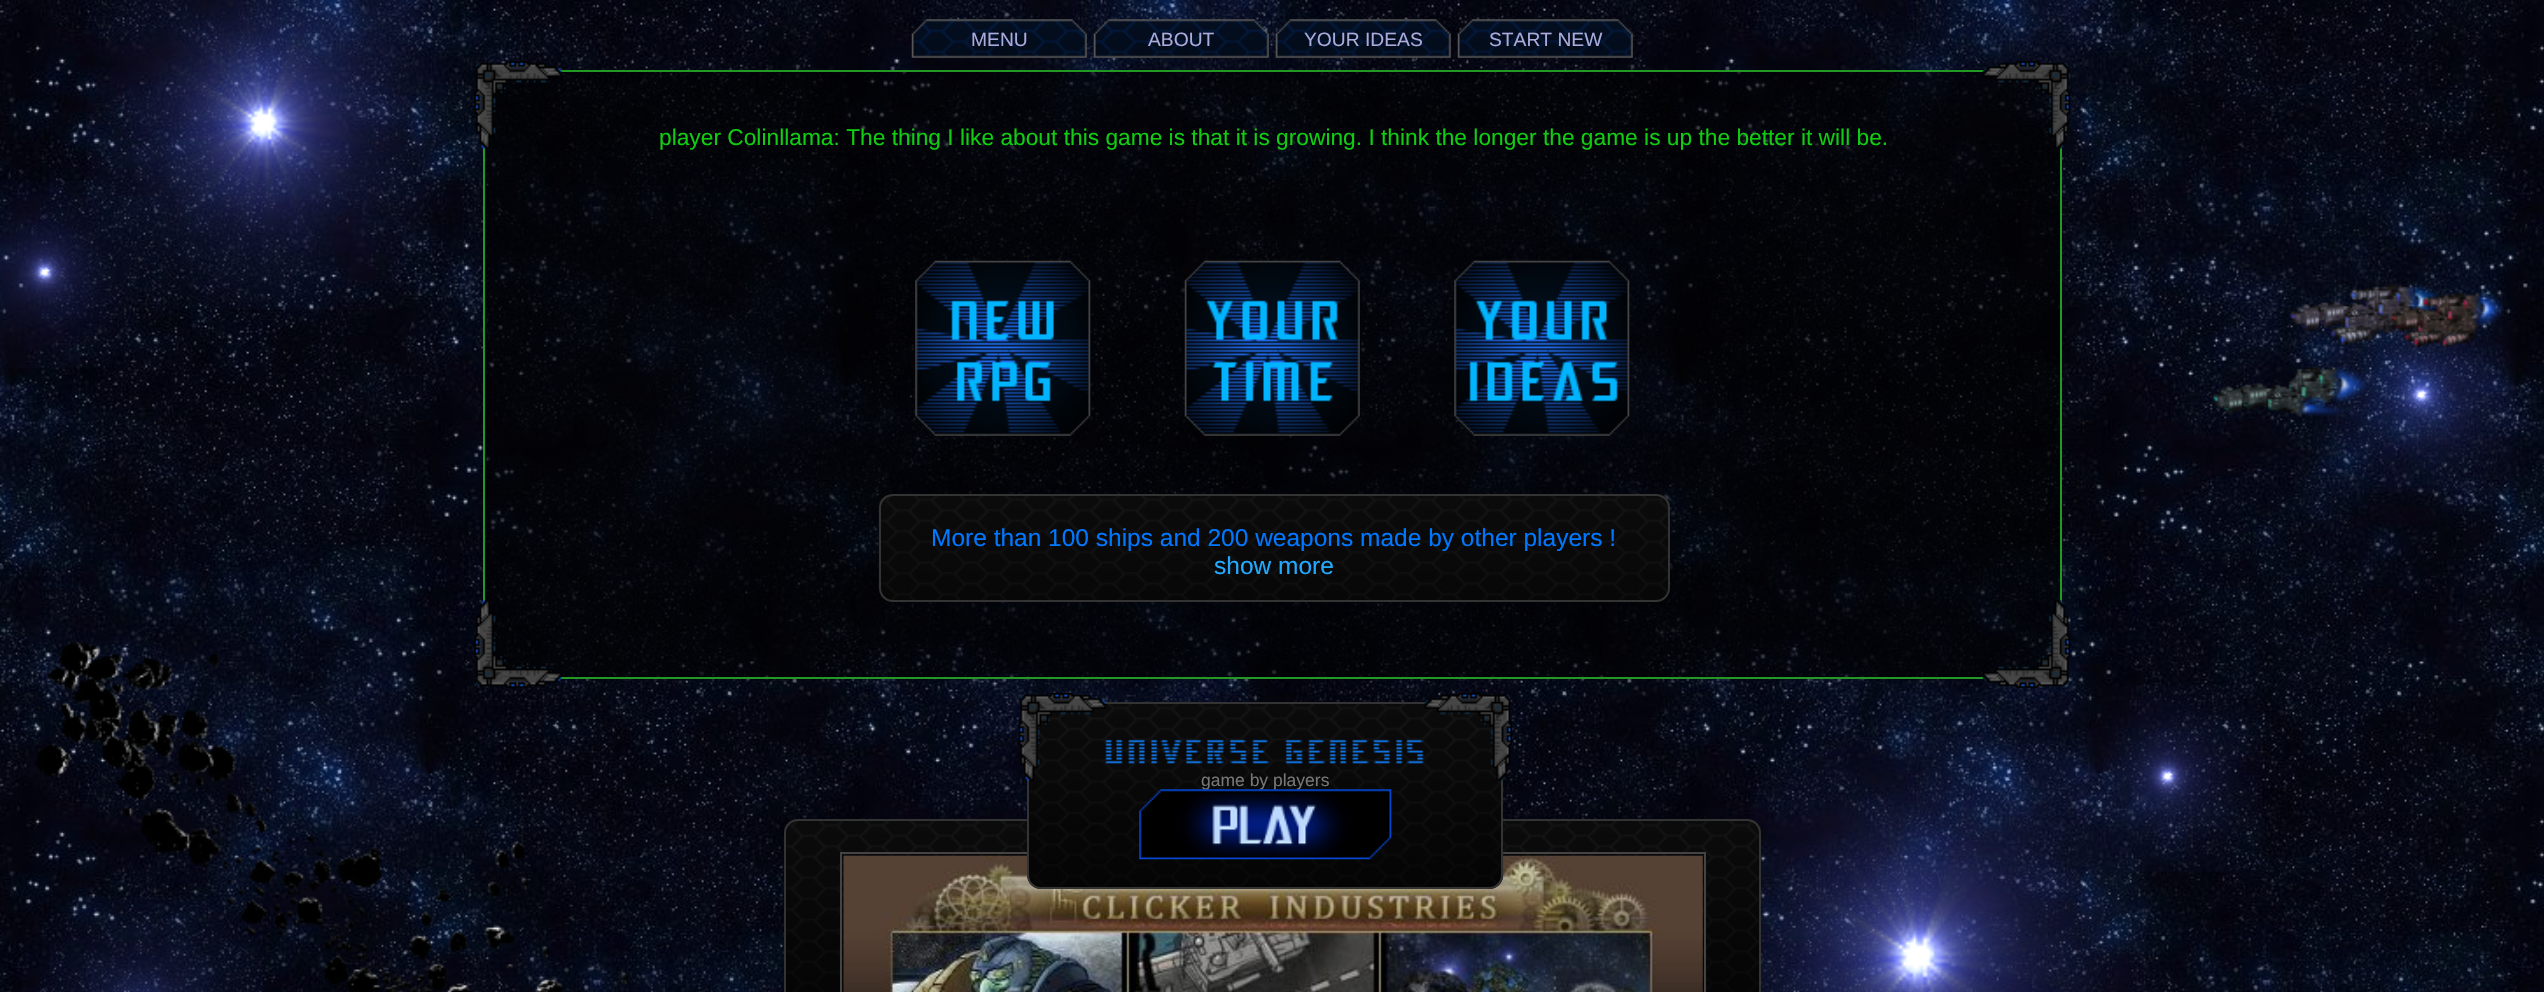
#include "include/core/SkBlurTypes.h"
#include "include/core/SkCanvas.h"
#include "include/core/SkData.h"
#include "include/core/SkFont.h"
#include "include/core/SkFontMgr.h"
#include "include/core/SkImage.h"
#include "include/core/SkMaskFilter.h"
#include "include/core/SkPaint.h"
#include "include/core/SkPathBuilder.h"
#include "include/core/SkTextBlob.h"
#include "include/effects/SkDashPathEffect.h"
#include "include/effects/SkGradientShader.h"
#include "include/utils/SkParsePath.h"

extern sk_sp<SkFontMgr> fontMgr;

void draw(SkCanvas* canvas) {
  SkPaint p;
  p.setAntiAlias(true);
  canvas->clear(SK_ColorWHITE);
  canvas->drawImageRect(SkImages::DeferredFromEncodedData(SkData::MakeFromFileName("images/1.png")), SkRect::MakeLTRB(0, 0, 2544, 992), SkSamplingOptions());
  canvas->drawImageRect(SkImages::DeferredFromEncodedData(SkData::MakeFromFileName("images/2.png")), SkRect::MakeLTRB(0, 181, 139, 368), SkSamplingOptions());
  canvas->drawImageRect(SkImages::DeferredFromEncodedData(SkData::MakeFromFileName("images/3.png")), SkRect::MakeLTRB(87, 0, 446, 309), SkSamplingOptions());
  canvas->drawImageRect(SkImages::DeferredFromEncodedData(SkData::MakeFromFileName("images/7.png")), SkRect::MakeLTRB(2330, 304, 2516, 491), SkSamplingOptions());
  canvas->drawImageRect(SkImages::DeferredFromEncodedData(SkData::MakeFromFileName("images/4.png")), SkRect::MakeLTRB(2289, 283, 2439, 346), SkSamplingOptions());
  canvas->drawImageRect(SkImages::DeferredFromEncodedData(SkData::MakeFromFileName("images/5.png")), SkRect::MakeLTRB(2391, 291, 2504, 348), SkSamplingOptions());
  canvas->drawImageRect(SkImages::DeferredFromEncodedData(SkData::MakeFromFileName("images/6.png")), SkRect::MakeLTRB(2212, 366, 2366, 417), SkSamplingOptions());
  canvas->drawImageRect(SkImages::DeferredFromEncodedData(SkData::MakeFromFileName("images/11.png")), SkRect::MakeLTRB(22, 897, 263, 992), SkSamplingOptions());
  canvas->drawImageRect(SkImages::DeferredFromEncodedData(SkData::MakeFromFileName("images/8.png")), SkRect::MakeLTRB(35, 642, 629, 992), SkSamplingOptions());
  canvas->drawImageRect(SkImages::DeferredFromEncodedData(SkData::MakeFromFileName("images/10.png")), SkRect::MakeLTRB(2076, 685, 2262, 872), SkSamplingOptions());
  canvas->drawImageRect(SkImages::DeferredFromEncodedData(SkData::MakeFromFileName("images/9.png")), SkRect::MakeLTRB(1750, 737, 2146, 992), SkSamplingOptions());
  canvas->drawImageRect(SkImages::DeferredFromEncodedData(SkData::MakeFromFileName("images/12.png")), SkRect::MakeLTRB(911, 19, 1087, 58), SkSamplingOptions());
  canvas->drawImageRect(SkImages::DeferredFromEncodedData(SkData::MakeFromFileName("images/13.png")), SkRect::MakeLTRB(1093, 19, 1269, 58), SkSamplingOptions());
  canvas->drawImageRect(SkImages::DeferredFromEncodedData(SkData::MakeFromFileName("images/14.png")), SkRect::MakeLTRB(1275, 19, 1451, 58), SkSamplingOptions());
  canvas->drawImageRect(SkImages::DeferredFromEncodedData(SkData::MakeFromFileName("images/15.png")), SkRect::MakeLTRB(1457, 19, 1633, 58), SkSamplingOptions());
  p.setColor(SkColorSetARGB(153, 0, 0, 0));
  canvas->drawRect(SkRect::MakeLTRB(484, 71, 2061, 678), p);
  p.setStyle(SkPaint::kStroke_Style);
  p.setStrokeWidth(2);
  p.setColor(SkColorSetRGB(34, 153, 34));
  canvas->drawRect(SkRect::MakeLTRB(484, 71, 2061, 678), p);
  canvas->drawImageRect(SkImages::DeferredFromEncodedData(SkData::MakeFromFileName("images/16.png")), SkRect::MakeLTRB(474, 61, 562, 149), SkSamplingOptions());
  canvas->drawImageRect(SkImages::DeferredFromEncodedData(SkData::MakeFromFileName("images/17.png")), SkRect::MakeLTRB(1982, 61, 2071, 149), SkSamplingOptions());
  canvas->drawImageRect(SkImages::DeferredFromEncodedData(SkData::MakeFromFileName("images/18.png")), SkRect::MakeLTRB(915, 260, 1091, 436), SkSamplingOptions());
  canvas->drawImageRect(SkImages::DeferredFromEncodedData(SkData::MakeFromFileName("images/19.png")), SkRect::MakeLTRB(1184, 260, 1360, 436), SkSamplingOptions());
  canvas->drawImageRect(SkImages::DeferredFromEncodedData(SkData::MakeFromFileName("images/20.png")), SkRect::MakeLTRB(1454, 260, 1630, 436), SkSamplingOptions());
  canvas->drawImageRect(SkImages::DeferredFromEncodedData(SkData::MakeFromFileName("images/21.png")), SkRect::MakeLTRB(878, 495, 1670, 602), SkSamplingOptions());
  p.setColor(SkColorSetRGB(51, 51, 51));
  canvas->drawRoundRect(SkRect::MakeLTRB(880, 495, 1669, 601), 13, 13, p);
  canvas->drawImageRect(SkImages::DeferredFromEncodedData(SkData::MakeFromFileName("images/22.png")), SkRect::MakeLTRB(474, 600, 562, 688), SkSamplingOptions());
  canvas->drawImageRect(SkImages::DeferredFromEncodedData(SkData::MakeFromFileName("images/23.png")), SkRect::MakeLTRB(1982, 600, 2071, 688), SkSamplingOptions());
  canvas->drawImageRect(SkImages::DeferredFromEncodedData(SkData::MakeFromFileName("images/29.png")), SkRect::MakeLTRB(784, 820, 1761, 992), SkSamplingOptions());
  canvas->drawRoundRect(SkRect::MakeLTRB(785, 820, 1760, 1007), 13, 13, p);
  p.setColor(SkColorSetRGB(68, 68, 68));
  canvas->drawRect(SkRect::MakeLTRB(841, 853, 1705, 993), p);
  canvas->drawImageRect(SkImages::DeferredFromEncodedData(SkData::MakeFromFileName("images/30.png")), SkRect::MakeLTRB(843, 855, 1703, 992), SkSamplingOptions());
  canvas->drawImageRect(SkImages::DeferredFromEncodedData(SkData::MakeFromFileName("images/24.png")), SkRect::MakeLTRB(1027, 704, 1504, 889), SkSamplingOptions());
  p.setColor(SkColorSetRGB(51, 51, 51));
  canvas->drawRoundRect(SkRect::MakeLTRB(1028, 703, 1502, 888), 13, 13, p);
  canvas->drawImageRect(SkImages::DeferredFromEncodedData(SkData::MakeFromFileName("images/26.png")), SkRect::MakeLTRB(1105, 739, 1424, 764), SkSamplingOptions());
  canvas->drawImageRect(SkImages::DeferredFromEncodedData(SkData::MakeFromFileName("images/25.png")), SkRect::MakeLTRB(1018, 693, 1106, 781), SkSamplingOptions());
  canvas->drawImageRect(SkImages::DeferredFromEncodedData(SkData::MakeFromFileName("images/27.png")), SkRect::MakeLTRB(1424, 693, 1512, 781), SkSamplingOptions());
  SkFont font1(fontMgr->matchFamilyStyle("Liberation Sans", SkFontStyle::Normal()), 19.25f);
  font1.setSubpixel(true);
  p.setStyle(SkPaint::kFill_Style);
  p.setColor(SkColorSetRGB(170, 170, 221));
  canvas->drawString("MENU", 971, 46, font1, p);
  canvas->drawString("ABOUT", 1148, 46, font1, p);
  canvas->drawString("YOUR IDEAS", 1304, 46, font1, p);
  canvas->drawString("START NEW", 1489, 46, font1, p);
  SkFont font2(fontMgr->matchFamilyStyle("Liberation Sans", SkFontStyle::Normal()), 22.75f);
  font2.setSubpixel(true);
  p.setColor(SkColorSetRGB(17, 204, 17));
  canvas->drawString("player Colinllama: The thing I like about this game is that it is growing. I think the longer the game is up the better it will be.", 659, 145, font2, p);
  SkFont font3(fontMgr->matchFamilyStyle("Liberation Sans", SkFontStyle::Normal()), 24.5f);
  font3.setSubpixel(true);
  p.setColor(SkColorSetRGB(0, 119, 255));
  canvas->drawString("More than 100 ships and 200 weapons made by other players !", 931, 546, font3, p);
  p.setColor(SkColorSetRGB(34, 170, 255));
  canvas->drawString("show more", 1214, 574, font3, p);
  SkFont font4(fontMgr->matchFamilyStyle("Liberation Sans", SkFontStyle::Normal()), 17.5f);
  font4.setSubpixel(true);
  p.setColor(SkColorSetRGB(119, 119, 119));
  canvas->drawString("game by players", 1201, 786, font4, p);
  canvas->drawImageRect(SkImages::DeferredFromEncodedData(SkData::MakeFromFileName("images/28.png")), SkRect::MakeLTRB(1139, 789, 1392, 860), SkSamplingOptions());
}
